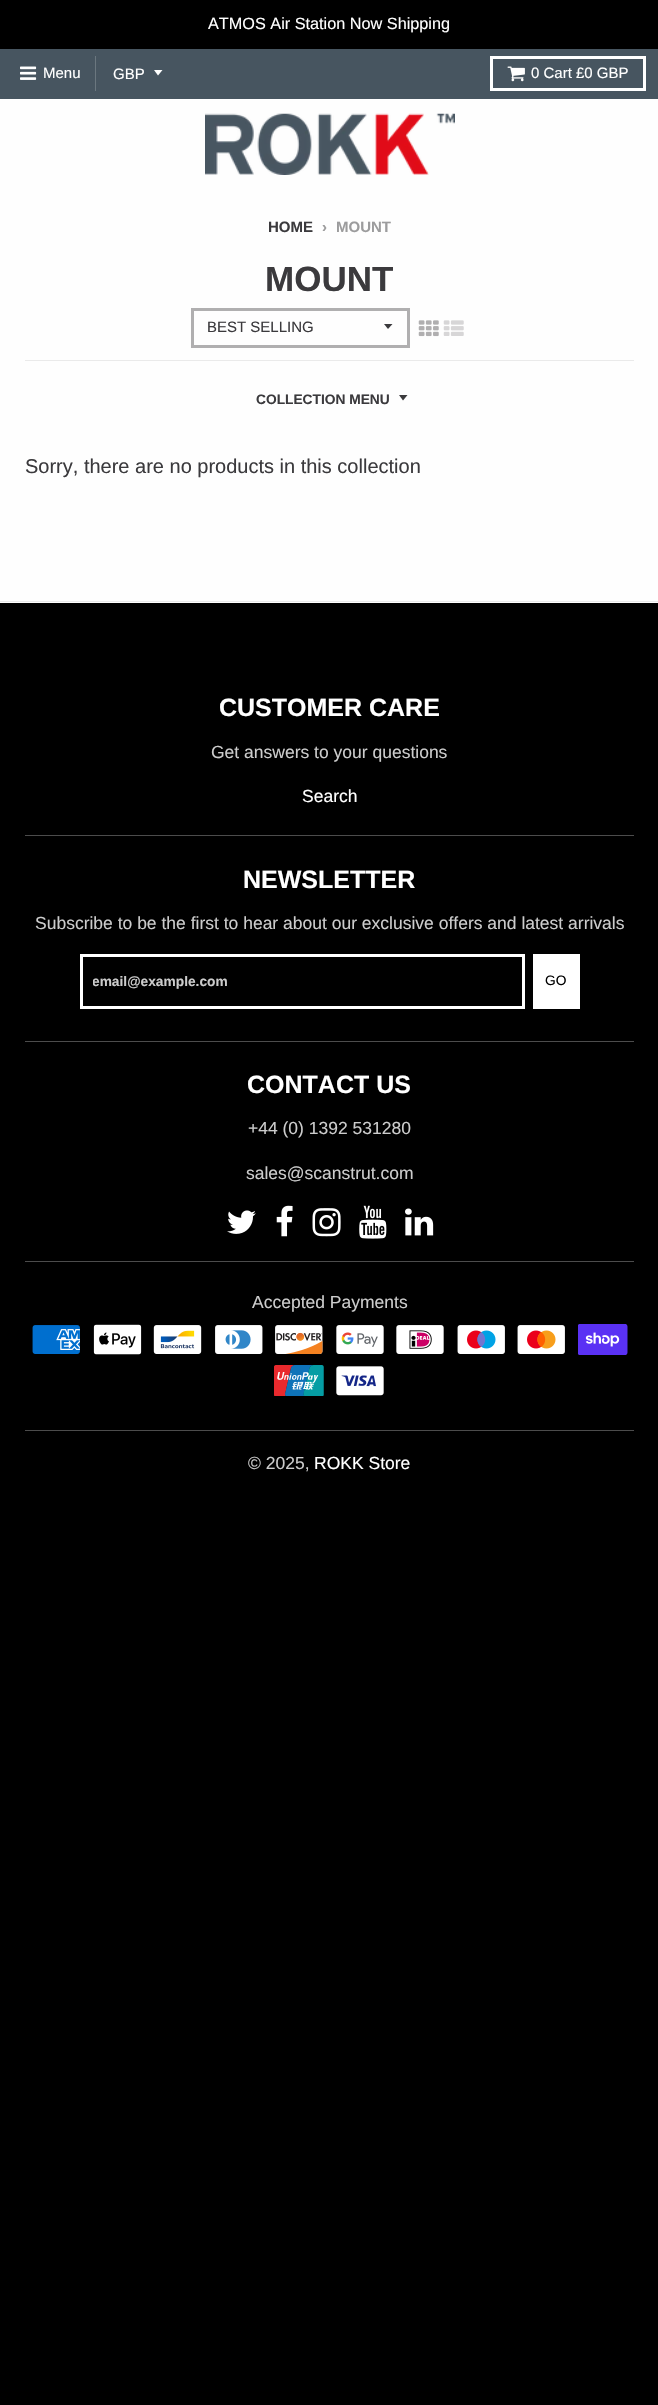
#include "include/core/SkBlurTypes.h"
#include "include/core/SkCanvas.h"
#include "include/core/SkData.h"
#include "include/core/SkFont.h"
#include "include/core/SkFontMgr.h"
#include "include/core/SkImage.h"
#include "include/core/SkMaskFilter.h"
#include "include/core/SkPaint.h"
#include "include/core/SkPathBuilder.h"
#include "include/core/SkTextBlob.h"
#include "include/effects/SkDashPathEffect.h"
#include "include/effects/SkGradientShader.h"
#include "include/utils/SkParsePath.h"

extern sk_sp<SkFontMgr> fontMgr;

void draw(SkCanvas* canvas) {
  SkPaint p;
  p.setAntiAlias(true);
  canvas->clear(SK_ColorBLACK);
  p.setColor(SkColorSetRGB(254, 254, 254));
  canvas->drawRect(SkRect::MakeLTRB(0, 99, 658, 603), p);
  p.setColor(SkColorSetRGB(71, 85, 96));
  canvas->drawRect(SkRect::MakeLTRB(0, 49, 658, 99), p);
  p.setColor(SkColorSetRGB(107, 119, 127));
  canvas->drawRect(SkRect::MakeLTRB(95, 56, 96, 91), p);
  canvas->drawImageRect(SkImages::DeferredFromEncodedData(SkData::MakeFromFileName("images/1.png")), SkRect::MakeLTRB(20, 66, 37, 80), SkSamplingOptions());
  p.setColor(SK_ColorWHITE);
  canvas->drawPath(SkPathBuilder().moveTo(154, 70).lineTo(158, 75.5f).lineTo(162.5f, 70).close().detach(), p);
  p.setStyle(SkPaint::kStroke_Style);
  p.setStrokeWidth(3);
  canvas->drawRect(SkRect::MakeLTRB(491.5f, 57.5f, 644.5f, 89.5f), p);
  canvas->drawImageRect(SkImages::DeferredFromEncodedData(SkData::MakeFromFileName("images/2.png")), SkRect::MakeLTRB(507, 66, 525, 82), SkSamplingOptions());
  canvas->drawImageRect(SkImages::DeferredFromEncodedData(SkData::MakeFromFileName("images/3.png")), SkRect::MakeLTRB(205, 113, 455, 175), SkSamplingOptions());
  p.setStyle(SkPaint::kFill_Style);
  p.setColor(SkColorSetRGB(234, 234, 234));
  canvas->drawRect(SkRect::MakeLTRB(0, 601, 658, 602), p);
  canvas->drawRect(SkRect::MakeLTRB(25, 360, 634, 361), p);
  p.setColor(SkColorSetRGB(59, 58, 61));
  canvas->drawPath(SkPathBuilder().moveTo(384, 324).lineTo(388, 329).lineTo(392.5f, 324).close().detach(), p);
  p.setStyle(SkPaint::kStroke_Style);
  p.setColor(SkColorSetRGB(176, 175, 176));
  canvas->drawRect(SkRect::MakeLTRB(192.5f, 309.5f, 408.5f, 346.5f), p);
  canvas->drawImageRect(SkImages::DeferredFromEncodedData(SkData::MakeFromFileName("images/4.png")), SkRect::MakeLTRB(418, 320, 439, 337), SkSamplingOptions());
  canvas->drawImageRect(SkImages::DeferredFromEncodedData(SkData::MakeFromFileName("images/5.png")), SkRect::MakeLTRB(443, 320, 464, 336), SkSamplingOptions());
  p.setStyle(SkPaint::kFill_Style);
  p.setColor(SkColorSetRGB(59, 58, 61));
  canvas->drawPath(SkPathBuilder().moveTo(399, 395).lineTo(403, 400.5f).lineTo(407.5f, 395).close().detach(), p);
  p.setColor(SkColorSetRGB(76, 76, 76));
  canvas->drawRect(SkRect::MakeLTRB(25, 835, 634, 836), p);
  canvas->drawRect(SkRect::MakeLTRB(25, 1041, 634, 1042), p);
  p.setStyle(SkPaint::kStroke_Style);
  p.setColor(SK_ColorWHITE);
  canvas->drawRect(SkRect::MakeLTRB(81.5f, 955.5f, 523.5f, 1007.5f), p);
  p.setStyle(SkPaint::kFill_Style);
  canvas->drawRect(SkRect::MakeLTRB(533, 954, 580, 1009), p);
  canvas->drawImageRect(SkImages::DeferredFromEncodedData(SkData::MakeFromFileName("images/6.png")), SkRect::MakeLTRB(227, 1210, 256, 1234), SkSamplingOptions());
  canvas->drawImageRect(SkImages::DeferredFromEncodedData(SkData::MakeFromFileName("images/7.png")), SkRect::MakeLTRB(276, 1205, 293, 1237), SkSamplingOptions());
  canvas->drawImageRect(SkImages::DeferredFromEncodedData(SkData::MakeFromFileName("images/8.png")), SkRect::MakeLTRB(312, 1208, 341, 1237), SkSamplingOptions());
  canvas->drawImageRect(SkImages::DeferredFromEncodedData(SkData::MakeFromFileName("images/9.png")), SkRect::MakeLTRB(359, 1205, 387, 1239), SkSamplingOptions());
  canvas->drawImageRect(SkImages::DeferredFromEncodedData(SkData::MakeFromFileName("images/10.png")), SkRect::MakeLTRB(405, 1208, 434, 1236), SkSamplingOptions());
  p.setColor(SkColorSetRGB(76, 76, 76));
  canvas->drawRect(SkRect::MakeLTRB(25, 1261, 634, 1262), p);
  canvas->drawRect(SkRect::MakeLTRB(25, 1430, 634, 1431), p);
  canvas->drawImageRect(SkImages::DeferredFromEncodedData(SkData::MakeFromFileName("images/11.png")), SkRect::MakeLTRB(32, 1325, 80, 1354), SkSamplingOptions());
  canvas->drawImageRect(SkImages::DeferredFromEncodedData(SkData::MakeFromFileName("images/12.png")), SkRect::MakeLTRB(93, 1324, 142, 1355), SkSamplingOptions());
  canvas->drawImageRect(SkImages::DeferredFromEncodedData(SkData::MakeFromFileName("images/13.png")), SkRect::MakeLTRB(153, 1325, 202, 1354), SkSamplingOptions());
  canvas->drawImageRect(SkImages::DeferredFromEncodedData(SkData::MakeFromFileName("images/14.png")), SkRect::MakeLTRB(215, 1325, 263, 1354), SkSamplingOptions());
  canvas->drawImageRect(SkImages::DeferredFromEncodedData(SkData::MakeFromFileName("images/15.png")), SkRect::MakeLTRB(275, 1325, 323, 1354), SkSamplingOptions());
  canvas->drawImageRect(SkImages::DeferredFromEncodedData(SkData::MakeFromFileName("images/16.png")), SkRect::MakeLTRB(336, 1325, 384, 1354), SkSamplingOptions());
  canvas->drawImageRect(SkImages::DeferredFromEncodedData(SkData::MakeFromFileName("images/17.png")), SkRect::MakeLTRB(396, 1325, 444, 1354), SkSamplingOptions());
  canvas->drawImageRect(SkImages::DeferredFromEncodedData(SkData::MakeFromFileName("images/18.png")), SkRect::MakeLTRB(457, 1325, 505, 1354), SkSamplingOptions());
  canvas->drawImageRect(SkImages::DeferredFromEncodedData(SkData::MakeFromFileName("images/19.png")), SkRect::MakeLTRB(517, 1325, 565, 1354), SkSamplingOptions());
  canvas->drawImageRect(SkImages::DeferredFromEncodedData(SkData::MakeFromFileName("images/20.png")), SkRect::MakeLTRB(578, 1324, 628, 1355), SkSamplingOptions());
  canvas->drawImageRect(SkImages::DeferredFromEncodedData(SkData::MakeFromFileName("images/21.png")), SkRect::MakeLTRB(274, 1365, 324, 1396), SkSamplingOptions());
  canvas->drawImageRect(SkImages::DeferredFromEncodedData(SkData::MakeFromFileName("images/22.png")), SkRect::MakeLTRB(336, 1366, 384, 1396), SkSamplingOptions());
  SkFont font1(fontMgr->matchFamilyStyle("Liberation Sans", SkFontStyle::Normal()), 16.25f);
  font1.setSubpixel(true);
  p.setColor(SK_ColorWHITE);
  canvas->drawString("ATMOS Air Station Now Shipping", 208, 29, font1, p);
  SkFont font2(fontMgr->matchFamilyStyle("Liberation Sans", SkFontStyle::Normal()), 15);
  font2.setSubpixel(true);
  canvas->drawString("Menu", 43, 78, font2, p);
  canvas->drawString("GBP", 113, 79, font2, p);
  canvas->drawString("0 Cart £0 GBP", 531, 78, font2, p);
  SkFont font3(fontMgr->matchFamilyStyle("Liberation Sans", SkFontStyle::Bold()), 15);
  font3.setSubpixel(true);
  p.setColor(SkColorSetRGB(59, 58, 61));
  canvas->drawString("HOME", 268, 232, font3, p);
  p.setColor(SkColorSetRGB(156, 156, 157));
  canvas->drawString("›", 322, 232, font3, p);
  canvas->drawString("MOUNT", 336, 232, font3, p);
  SkFont font4(fontMgr->matchFamilyStyle("Liberation Sans", SkFontStyle::Bold()), 35);
  font4.setSubpixel(true);
  p.setColor(SkColorSetRGB(59, 58, 61));
  canvas->drawString("MOUNT", 265, 291, font4, p);
  canvas->drawString("BEST SELLING", 207, 332, font2, p);
  SkFont font5(fontMgr->matchFamilyStyle("Liberation Sans", SkFontStyle::Bold()), 13.75f);
  font5.setSubpixel(true);
  canvas->drawString("COLLECTION MENU", 256, 404, font5, p);
  SkFont font6(fontMgr->matchFamilyStyle("Liberation Sans", SkFontStyle::Normal()), 20);
  font6.setSubpixel(true);
  canvas->drawString("Sorry, there are no products in this collection", 25, 473, font6, p);
  SkFont font7(fontMgr->matchFamilyStyle("Liberation Sans", SkFontStyle::Bold()), 25);
  font7.setSubpixel(true);
  p.setColor(SK_ColorWHITE);
  canvas->drawString("CUSTOMER CARE", 219, 716, font7, p);
  SkFont font8(fontMgr->matchFamilyStyle("Liberation Sans", SkFontStyle::Normal()), 17.5f);
  font8.setSubpixel(true);
  p.setColor(SkColorSetRGB(204, 204, 204));
  canvas->drawString("Get answers to your questions", 211, 758, font8, p);
  p.setColor(SK_ColorWHITE);
  canvas->drawString("Search", 302, 802, font8, p);
  canvas->drawString("NEWSLETTER", 243, 888, font7, p);
  p.setColor(SkColorSetRGB(204, 204, 204));
  canvas->drawString("Subscribe to be the first to hear about our exclusive offers and latest arrivals", 35, 929, font8, p);
  canvas->save();
  canvas->clipRect(SkRect::MakeLTRB(93, 974, 513, 989));
  canvas->drawString("email@example.com", 92, 986, font5, p);
  canvas->restore();
  SkFont font9(fontMgr->matchFamilyStyle("Liberation Sans", SkFontStyle::Normal()), 13.75f);
  font9.setSubpixel(true);
  p.setColor(SK_ColorBLACK);
  canvas->drawString("GO", 545, 985, font9, p);
  p.setColor(SK_ColorWHITE);
  canvas->drawString("CONTACT US", 247, 1093, font7, p);
  p.setColor(SkColorSetRGB(204, 204, 204));
  canvas->drawString("+44 (0) 1392 531280", 248, 1134, font8, p);
  canvas->drawString("sales@scanstrut.com", 246, 1179, font8, p);
  canvas->drawString("Accepted Payments", 252, 1308, font8, p);
  canvas->drawString("© 2025,", 248, 1469, font8, p);
  p.setColor(SK_ColorWHITE);
  canvas->drawString("ROKK Store", 314, 1469, font8, p);
}
